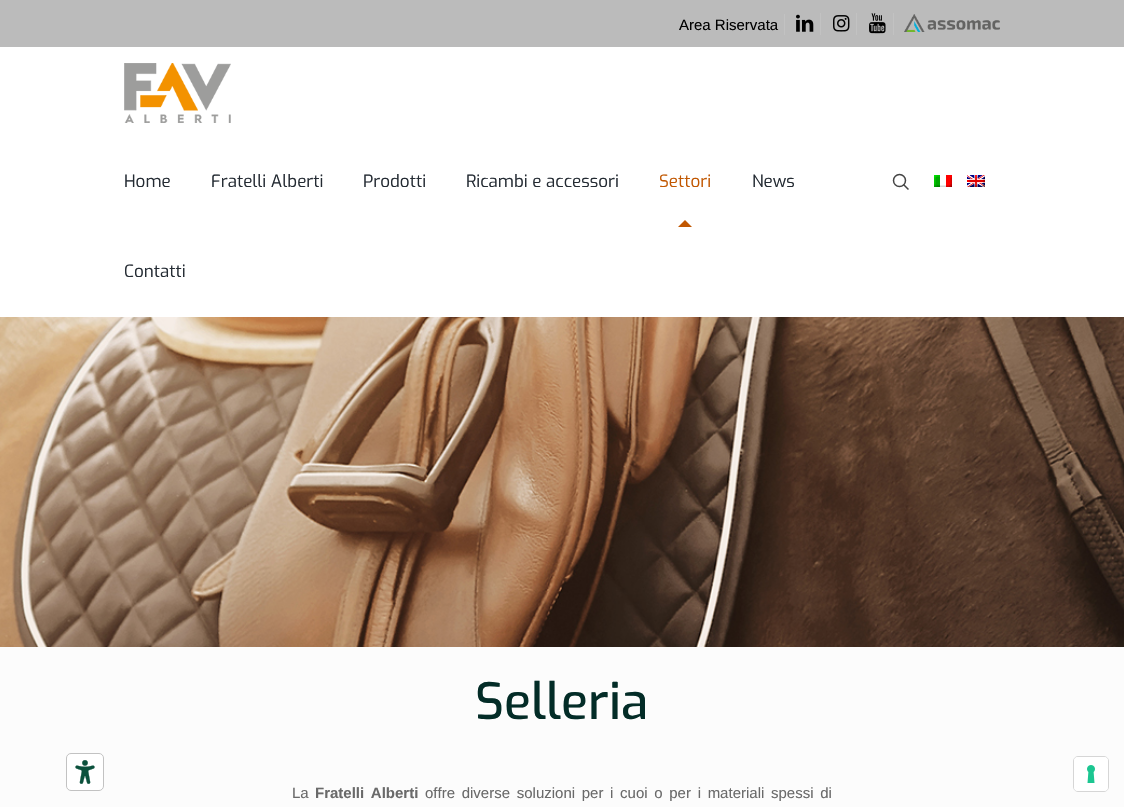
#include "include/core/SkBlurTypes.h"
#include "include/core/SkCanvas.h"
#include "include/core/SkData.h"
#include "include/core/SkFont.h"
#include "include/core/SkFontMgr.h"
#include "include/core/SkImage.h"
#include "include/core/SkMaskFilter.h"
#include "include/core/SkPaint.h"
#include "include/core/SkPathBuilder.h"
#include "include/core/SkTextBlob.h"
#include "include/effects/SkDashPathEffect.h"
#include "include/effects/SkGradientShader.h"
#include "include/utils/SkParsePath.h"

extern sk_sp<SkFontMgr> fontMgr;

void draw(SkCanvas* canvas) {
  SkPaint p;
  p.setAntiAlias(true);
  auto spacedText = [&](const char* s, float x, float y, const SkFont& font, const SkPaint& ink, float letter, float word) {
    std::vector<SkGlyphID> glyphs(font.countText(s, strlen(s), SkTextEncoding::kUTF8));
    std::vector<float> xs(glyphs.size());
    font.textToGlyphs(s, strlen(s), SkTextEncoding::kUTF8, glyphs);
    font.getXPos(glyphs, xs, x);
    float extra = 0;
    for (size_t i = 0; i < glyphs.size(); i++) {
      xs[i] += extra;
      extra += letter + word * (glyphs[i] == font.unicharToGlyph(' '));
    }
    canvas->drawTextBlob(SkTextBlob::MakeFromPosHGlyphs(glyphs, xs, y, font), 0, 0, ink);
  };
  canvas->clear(SkColorSetRGB(252, 252, 252));
  p.setColor(SK_ColorWHITE);
  canvas->drawRoundRect(SkRect::MakeLTRB(66, 753, 104, 791), 5, 5, p);
  canvas->drawImageRect(SkImages::DeferredFromEncodedData(SkData::MakeFromFileName("images/1.png")), SkRect::MakeLTRB(75, 760, 95, 784), SkSamplingOptions());
  p.setStyle(SkPaint::kStroke_Style);
  p.setStrokeWidth(1);
  p.setColor(SkColorSetRGB(194, 194, 194));
  canvas->drawRoundRect(SkRect::MakeLTRB(66.5f, 753.5f, 103.5f, 790.5f), 4.5f, 4.5f, p);
  canvas->drawImageRect(SkImages::DeferredFromEncodedData(SkData::MakeFromFileName("images/2.png")), SkRect::MakeLTRB(0, 317, 1124, 647), SkSamplingOptions());
  p.setStyle(SkPaint::kFill_Style);
  p.setColor(SkColorSetRGB(187, 187, 187));
  canvas->drawRect(SkRect::MakeLTRB(0, 0, 1124, 47), p);
  p.setColor(SkColorSetRGB(194, 194, 194));
  canvas->drawRect(SkRect::MakeLTRB(784, 14, 785, 35), p);
  canvas->drawRect(SkRect::MakeLTRB(820, 13, 821, 35), p);
  canvas->drawImageRect(SkImages::DeferredFromEncodedData(SkData::MakeFromFileName("images/3.png")), SkRect::MakeLTRB(796, 14, 814, 32), SkSamplingOptions());
  canvas->drawRect(SkRect::MakeLTRB(856, 13, 857, 35), p);
  canvas->drawImageRect(SkImages::DeferredFromEncodedData(SkData::MakeFromFileName("images/4.png")), SkRect::MakeLTRB(833, 15, 850, 32), SkSamplingOptions());
  canvas->drawRect(SkRect::MakeLTRB(893, 13, 894, 35), p);
  canvas->drawImageRect(SkImages::DeferredFromEncodedData(SkData::MakeFromFileName("images/5.png")), SkRect::MakeLTRB(869, 13, 886, 34), SkSamplingOptions());
  canvas->drawImageRect(SkImages::DeferredFromEncodedData(SkData::MakeFromFileName("images/6.png")), SkRect::MakeLTRB(904, 14, 1000, 32), SkSamplingOptions());
  p.setColor(SK_ColorWHITE);
  canvas->drawRect(SkRect::MakeLTRB(0, 47, 1124, 317), p);
  canvas->drawImageRect(SkImages::DeferredFromEncodedData(SkData::MakeFromFileName("images/7.png")), SkRect::MakeLTRB(124, 63, 231, 123), SkSamplingOptions());
  p.setColor(SkColorSetRGB(193, 87, 1));
  canvas->drawPath(SkPathBuilder().moveTo(692, 227).lineTo(678, 227).lineTo(685, 220).close().detach(), p);
  p.setStyle(SkPaint::kStroke_Style);
  p.setStrokeWidth(1.5f);
  p.setColor(SkColorSetRGB(68, 68, 68));
  canvas->drawCircle(899.5f, 180.5f, 6, p);
  canvas->drawPath(SkPathBuilder().moveTo(903.5f, 184.5f).lineTo(908.5f, 189.5f).detach(), p);
  canvas->drawImageRect(SkImages::DeferredFromEncodedData(SkData::MakeFromFileName("images/8.png")), SkRect::MakeLTRB(934, 175, 952, 187), SkSamplingOptions());
  canvas->drawImageRect(SkImages::DeferredFromEncodedData(SkData::MakeFromFileName("images/9.png")), SkRect::MakeLTRB(967, 175, 985, 187), SkSamplingOptions());
  p.setStrokeWidth(1);
  p.setColor(SkColorSetRGB(214, 214, 214));
  canvas->drawRoundRect(SkRect::MakeLTRB(1073.5f, 756.5f, 1108.5f, 791.5f), 4.5f, 4.5f, p);
  p.setStyle(SkPaint::kFill_Style);
  p.setColor(SK_ColorWHITE);
  canvas->drawRoundRect(SkRect::MakeLTRB(1074, 757, 1108, 791), 4, 4, p);
  canvas->drawImageRect(SkImages::DeferredFromEncodedData(SkData::MakeFromFileName("images/10.png")), SkRect::MakeLTRB(1087, 765, 1095, 783), SkSamplingOptions());
  SkFont font1(fontMgr->matchFamilyStyle("Liberation Sans", SkFontStyle::Normal()), 15);
  font1.setSubpixel(true);
  p.setColor(SK_ColorBLACK);
  canvas->drawString("Area Riservata", 679, 30, font1, p);
  SkFont font2(fontMgr->matchFamilyStyle("Exo", SkFontStyle::Normal()), 17);
  font2.setSubpixel(true);
  p.setColor(SkColorSetRGB(36, 43, 51));
  canvas->drawString("Home", 124, 187, font2, p);
  canvas->drawString("Fratelli Alberti", 211, 187, font2, p);
  canvas->drawString("Prodotti", 363, 187, font2, p);
  canvas->drawString("Ricambi e accessori", 466, 187, font2, p);
  p.setColor(SkColorSetRGB(193, 87, 1));
  canvas->drawString("Settori", 659, 187, font2, p);
  p.setColor(SkColorSetRGB(36, 43, 51));
  canvas->drawString("News", 752, 187, font2, p);
  canvas->drawString("Contatti", 124, 277, font2, p);
  SkFont font3(fontMgr->matchFamilyStyle("Exo", SkFontStyle(500, SkFontStyle::kNormal_Width, SkFontStyle::kUpright_Slant)), 50);
  font3.setSubpixel(true);
  p.setColor(SkColorSetRGB(3, 44, 39));
  canvas->drawString("Selleria", 475, 719, font3, p);
  p.setColor(SkColorSetRGB(106, 106, 106));
  canvas->drawString("La", 292, 798, font1, p);
  SkFont font4(fontMgr->matchFamilyStyle("Liberation Sans", SkFontStyle::Bold()), 15);
  font4.setSubpixel(true);
  spacedText("Fratelli Alberti", 315, 798, font4, p, 0, 2.5f);
  spacedText("offre diverse soluzioni per i cuoi o per i materiali spessi di", 425, 798, font1, p, 0, 2.5f);
}
